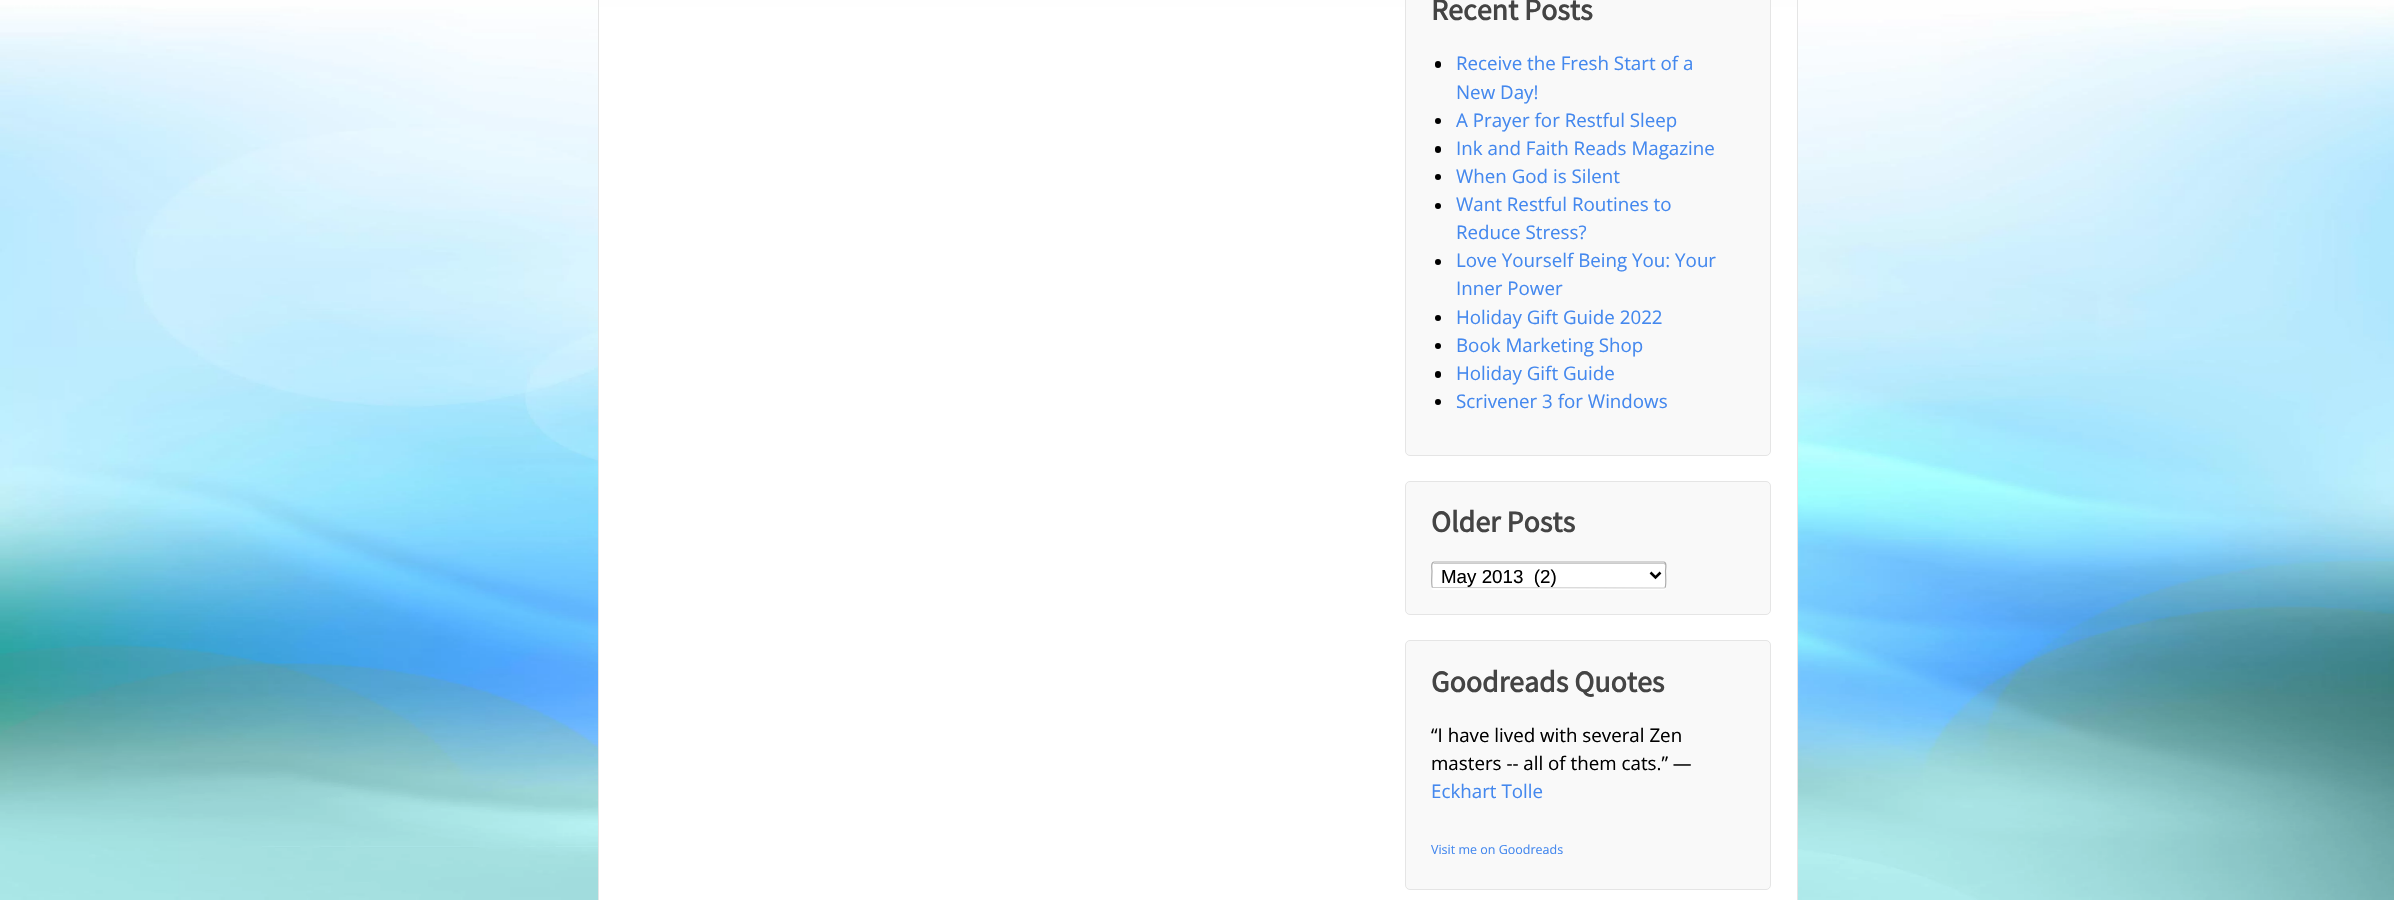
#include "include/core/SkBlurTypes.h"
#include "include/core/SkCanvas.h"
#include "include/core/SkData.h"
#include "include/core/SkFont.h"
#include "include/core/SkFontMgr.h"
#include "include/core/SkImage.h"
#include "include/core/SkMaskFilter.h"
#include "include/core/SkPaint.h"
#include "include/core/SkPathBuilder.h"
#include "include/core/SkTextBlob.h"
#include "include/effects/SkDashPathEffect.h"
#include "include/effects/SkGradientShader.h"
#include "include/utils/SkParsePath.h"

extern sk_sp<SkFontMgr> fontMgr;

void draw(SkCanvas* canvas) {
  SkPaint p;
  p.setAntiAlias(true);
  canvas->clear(SK_ColorWHITE);
  canvas->drawImageRect(SkImages::DeferredFromEncodedData(SkData::MakeFromFileName("images/1.png")), SkRect::MakeLTRB(0, 0, 2394, 900), SkSamplingOptions());
  p.setColor(SK_ColorWHITE);
  canvas->drawRect(SkRect::MakeLTRB(599, 7, 1797, 900), p);
  p.setStyle(SkPaint::kStroke_Style);
  p.setStrokeWidth(1);
  p.setColor(SkColorSetRGB(229, 229, 229));
  canvas->drawRect(SkRect::MakeLTRB(598.5f, -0.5f, 1797.5f, 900.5f), p);
  p.setStyle(SkPaint::kFill_Style);
  p.setColor(SkColorSetRGB(249, 249, 249));
  canvas->drawRoundRect(SkRect::MakeLTRB(1405.5f, -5.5f, 1770.5f, 455.5f), 4.5f, 4.5f, p);
  p.setStyle(SkPaint::kStroke_Style);
  p.setColor(SkColorSetRGB(229, 229, 229));
  canvas->drawRoundRect(SkRect::MakeLTRB(1405.5f, -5.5f, 1770.5f, 455.5f), 4.5f, 4.5f, p);
  p.setStyle(SkPaint::kFill_Style);
  p.setColor(SK_ColorBLACK);
  canvas->drawRoundRect(SkRect::MakeLTRB(1435, 61, 1441, 68), 3, 3, p);
  canvas->drawCircle(1438, 121, 3, p);
  canvas->drawRoundRect(SkRect::MakeLTRB(1435, 146, 1441, 153), 3, 3, p);
  canvas->drawCircle(1438, 177, 3, p);
  canvas->drawCircle(1438, 206, 3, p);
  canvas->drawCircle(1438, 262, 3, p);
  canvas->drawCircle(1438, 318, 3, p);
  canvas->drawCircle(1438, 346, 3, p);
  canvas->drawRoundRect(SkRect::MakeLTRB(1435, 371, 1441, 378), 3, 3, p);
  canvas->drawCircle(1438, 402, 3, p);
  p.setColor(SkColorSetRGB(249, 249, 249));
  canvas->drawRoundRect(SkRect::MakeLTRB(1405.5f, 481.5f, 1770.5f, 614.5f), 4.5f, 4.5f, p);
  p.setStyle(SkPaint::kStroke_Style);
  p.setColor(SkColorSetRGB(229, 229, 229));
  canvas->drawRoundRect(SkRect::MakeLTRB(1405.5f, 481.5f, 1770.5f, 614.5f), 4.5f, 4.5f, p);
  p.setStyle(SkPaint::kFill_Style);
  p.setColor(SK_ColorWHITE);
  canvas->drawPath(SkPathBuilder().moveTo(1431, 564).lineTo(1431, 580).cubicTo(1431, 582, 1429, 590, 1434, 590).lineTo(1664, 590).cubicTo(1665, 590, 1666, 589, 1666, 587).cubicTo(1666, 588, 1665, 589, 1664, 589).lineTo(1434, 589).cubicTo(1432, 589, 1431, 588, 1431, 586).close().detach(), p);
  canvas->drawRoundRect(SkRect::MakeLTRB(1431, 561, 1666, 589), 2.5f, 2.5f, p);
  p.setColor(SkColorSetRGB(204, 204, 204));
  canvas->drawPath(SkPathBuilder().moveTo(1434, 564).lineTo(1664, 564).lineTo(1665, 565).lineTo(1665, 563).lineTo(1434, 563).lineTo(1433, 564).close().detach(), p);
  p.setStyle(SkPaint::kStroke_Style);
  p.setStrokeWidth(1.2f);
  canvas->drawPath(SkPathBuilder().moveTo(1665, 587.5f).lineTo(1664, 588).lineTo(1432.5f, 587.5f).detach(), p);
  p.setColor(SkColorSetRGB(170, 170, 170));
  canvas->drawPath(SkPathBuilder().moveTo(1432.5f, 587.5f).cubicTo(1431, 586, 1432, 574, 1432, 571).cubicTo(1432, 570, 1430.5f, 562, 1434, 562).lineTo(1664, 562).cubicTo(1667, 562, 1665.5f, 570, 1665.5f, 571).cubicTo(1665.5f, 574, 1666.5f, 586, 1665, 587.5f).detach(), p);
  p.setStrokeWidth(2.5f);
  p.setColor(SK_ColorBLACK);
  canvas->drawPath(SkPathBuilder().moveTo(1650.5f, 572.5f).lineTo(1655.5f, 577.5f).lineTo(1660.5f, 572.5f).detach(), p);
  p.setStyle(SkPaint::kFill_Style);
  p.setColor(SkColorSetRGB(249, 249, 249));
  canvas->drawRoundRect(SkRect::MakeLTRB(1405.5f, 640.5f, 1770.5f, 889.5f), 4.5f, 4.5f, p);
  p.setStyle(SkPaint::kStroke_Style);
  p.setStrokeWidth(1);
  p.setColor(SkColorSetRGB(229, 229, 229));
  canvas->drawRoundRect(SkRect::MakeLTRB(1405.5f, 640.5f, 1770.5f, 889.5f), 4.5f, 4.5f, p);
  SkFont font1(fontMgr->matchFamilyStyle("Source Sans Pro", SkFontStyle::Bold()), 30);
  font1.setSubpixel(true);
  p.setStyle(SkPaint::kFill_Style);
  p.setColor(SkColorSetRGB(68, 68, 68));
  canvas->drawString("Recent Posts", 1431, 20, font1, p);
  SkFont font2(fontMgr->matchFamilyStyle("Open Sans", SkFontStyle::Normal()), 18.75f);
  font2.setSubpixel(true);
  p.setColor(SkColorSetRGB(68, 136, 238));
  canvas->drawString("Receive the Fresh Start of a", 1456, 70, font2, p);
  canvas->drawString("New Day!", 1456, 99, font2, p);
  canvas->drawString("A Prayer for Restful Sleep", 1456, 127, font2, p);
  canvas->drawString("Ink and Faith Reads Magazine", 1456, 155, font2, p);
  canvas->drawString("When God is Silent", 1456, 183, font2, p);
  canvas->drawString("Want Restful Routines to", 1456, 211, font2, p);
  canvas->drawString("Reduce Stress?", 1456, 239, font2, p);
  canvas->drawString("Love Yourself Being You: Your", 1456, 267, font2, p);
  canvas->drawString("Inner Power", 1456, 295, font2, p);
  canvas->drawString("Holiday Gift Guide 2022", 1456, 324, font2, p);
  canvas->drawString("Book Marketing Shop", 1456, 352, font2, p);
  canvas->drawString("Holiday Gift Guide", 1456, 380, font2, p);
  canvas->drawString("Scrivener 3 for Windows", 1456, 408, font2, p);
  p.setColor(SkColorSetRGB(68, 68, 68));
  canvas->drawString("Older Posts", 1431, 532, font1, p);
  SkFont font3(fontMgr->matchFamilyStyle("Liberation Sans", SkFontStyle::Normal()), 18.75f);
  font3.setSubpixel(true);
  p.setColor(SK_ColorBLACK);
  canvas->drawString("May 2013  (2)", 1441, 583, font3, p);
  p.setColor(SkColorSetRGB(68, 68, 68));
  canvas->drawString("Goodreads Quotes", 1431, 692, font1, p);
  p.setColor(SK_ColorBLACK);
  canvas->drawString("“I have lived with several Zen", 1431, 742, font2, p);
  canvas->drawString("masters -- all of them cats.” —", 1431, 770, font2, p);
  p.setColor(SkColorSetRGB(68, 136, 238));
  canvas->drawString("Eckhart Tolle", 1431, 798, font2, p);
  SkFont font4(fontMgr->matchFamilyStyle("Open Sans", SkFontStyle::Normal()), 12.5f);
  font4.setSubpixel(true);
  canvas->drawString("Visit me on Goodreads", 1431, 854, font4, p);
}
